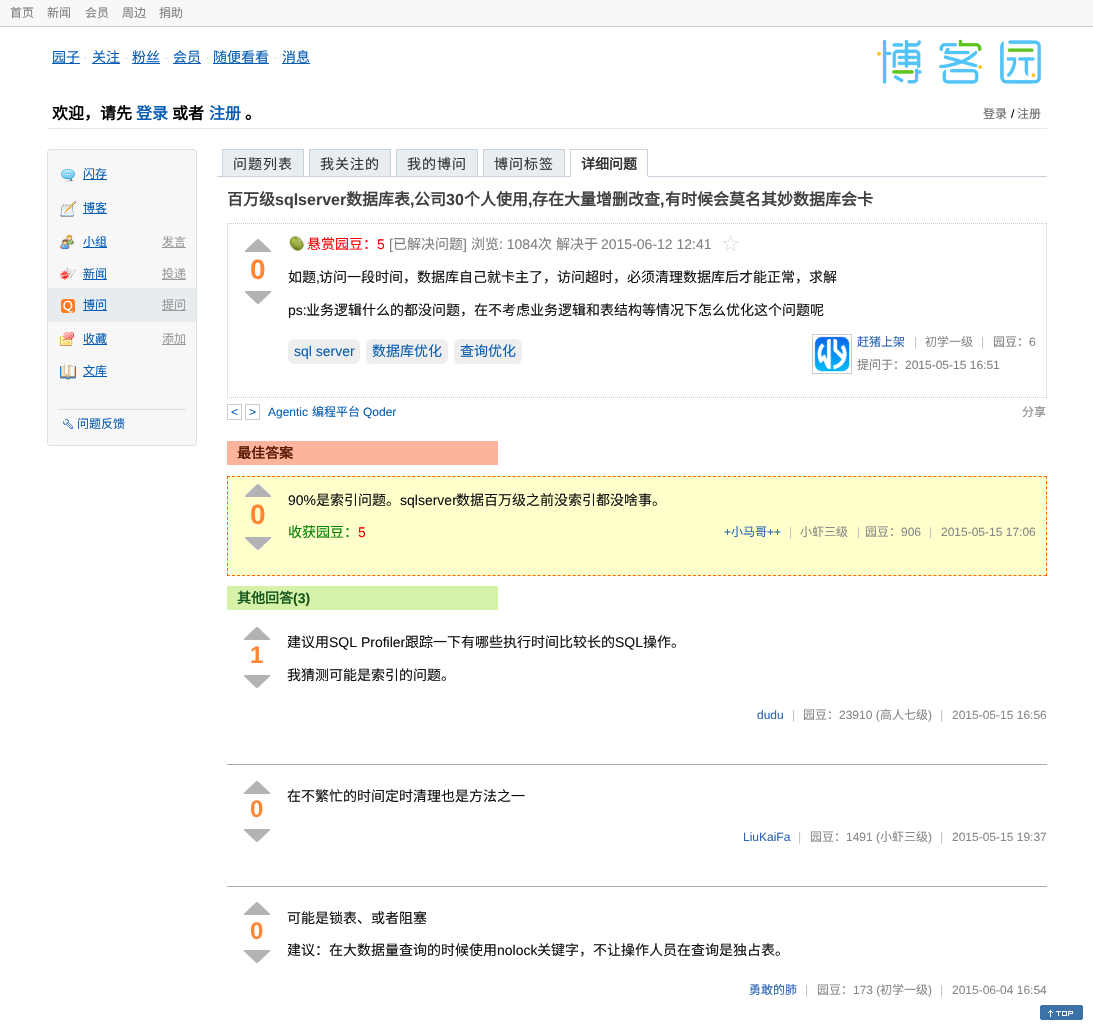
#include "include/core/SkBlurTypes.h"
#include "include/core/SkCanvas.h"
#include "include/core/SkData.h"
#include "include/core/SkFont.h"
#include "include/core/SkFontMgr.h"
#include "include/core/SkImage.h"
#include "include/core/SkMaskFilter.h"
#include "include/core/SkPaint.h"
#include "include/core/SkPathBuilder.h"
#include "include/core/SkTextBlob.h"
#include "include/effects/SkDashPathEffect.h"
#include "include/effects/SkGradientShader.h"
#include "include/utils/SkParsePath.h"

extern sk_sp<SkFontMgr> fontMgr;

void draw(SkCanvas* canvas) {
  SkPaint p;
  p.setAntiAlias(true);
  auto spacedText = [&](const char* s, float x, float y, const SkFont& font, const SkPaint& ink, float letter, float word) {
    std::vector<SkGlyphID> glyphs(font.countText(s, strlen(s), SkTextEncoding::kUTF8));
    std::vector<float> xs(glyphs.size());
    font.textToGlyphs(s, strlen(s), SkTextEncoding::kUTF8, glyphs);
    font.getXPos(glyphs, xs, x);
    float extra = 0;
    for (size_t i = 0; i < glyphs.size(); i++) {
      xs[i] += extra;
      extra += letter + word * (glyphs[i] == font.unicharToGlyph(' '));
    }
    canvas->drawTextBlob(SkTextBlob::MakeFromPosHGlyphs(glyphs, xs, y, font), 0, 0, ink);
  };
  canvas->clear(SK_ColorWHITE);
  p.setColor(SkColorSetRGB(248, 248, 248));
  canvas->drawRect(SkRect::MakeLTRB(0, 0, 1093, 26), p);
  p.setColor(SkColorSetRGB(204, 204, 204));
  canvas->drawRect(SkRect::MakeLTRB(0, 26, 1093, 27), p);
  p.setColor(SkColorSetRGB(232, 232, 232));
  canvas->drawRect(SkRect::MakeLTRB(47, 128, 1047, 129), p);
  p.setColor(SkColorSetRGB(7, 93, 179));
  canvas->drawRect(SkRect::MakeLTRB(52, 63, 80, 64), p);
  canvas->drawRect(SkRect::MakeLTRB(92, 63, 120, 64), p);
  canvas->drawRect(SkRect::MakeLTRB(132, 63, 160, 64), p);
  canvas->drawRect(SkRect::MakeLTRB(173, 63, 201, 64), p);
  canvas->drawRect(SkRect::MakeLTRB(213, 63, 269, 64), p);
  canvas->drawRect(SkRect::MakeLTRB(282, 63, 310, 64), p);
  canvas->drawImageRect(SkImages::DeferredFromEncodedData(SkData::MakeFromFileName("images/1.png")), SkRect::MakeLTRB(877, 39, 1042, 84), SkSamplingOptions());
  p.setColor(SkColorSetRGB(223, 225, 225));
  canvas->drawRect(SkRect::MakeLTRB(49, 149, 195, 150), p);
  p.setColor(SkColorSetRGB(247, 247, 247));
  canvas->drawRect(SkRect::MakeLTRB(48, 150, 196, 151), p);
  p.setColor(SkColorSetRGB(223, 225, 225));
  canvas->drawRect(SkRect::MakeLTRB(195, 150, 196, 151), p);
  canvas->drawRect(SkRect::MakeLTRB(48, 150, 49, 151), p);
  p.setColor(SkColorSetRGB(247, 247, 247));
  canvas->drawRect(SkRect::MakeLTRB(47, 151, 197, 152), p);
  p.setColor(SkColorSetRGB(219, 222, 226));
  canvas->drawRect(SkRect::MakeLTRB(196, 151, 197, 152), p);
  p.setColor(SkColorSetRGB(223, 225, 225));
  canvas->drawRect(SkRect::MakeLTRB(47, 151, 48, 443), p);
  p.setColor(SkColorSetRGB(247, 247, 247));
  canvas->drawRect(SkRect::MakeLTRB(48, 152, 196, 443), p);
  p.setColor(SkColorSetRGB(223, 225, 225));
  canvas->drawRect(SkRect::MakeLTRB(196, 152, 197, 443), p);
  canvas->drawImageRect(SkImages::DeferredFromEncodedData(SkData::MakeFromFileName("images/2.png")), SkRect::MakeLTRB(61, 169, 75, 182), SkSamplingOptions());
  p.setColor(SkColorSetRGB(7, 93, 179));
  canvas->drawRect(SkRect::MakeLTRB(83, 179, 107, 180), p);
  canvas->drawImageRect(SkImages::DeferredFromEncodedData(SkData::MakeFromFileName("images/3.png")), SkRect::MakeLTRB(60, 201, 76, 217), SkSamplingOptions());
  canvas->drawRect(SkRect::MakeLTRB(83, 213, 107, 214), p);
  canvas->drawImageRect(SkImages::DeferredFromEncodedData(SkData::MakeFromFileName("images/4.png")), SkRect::MakeLTRB(60, 235, 74, 249), SkSamplingOptions());
  canvas->drawRect(SkRect::MakeLTRB(83, 247, 107, 248), p);
  p.setColor(SkColorSetRGB(153, 153, 153));
  canvas->drawRect(SkRect::MakeLTRB(162, 247, 186, 248), p);
  canvas->drawImageRect(SkImages::DeferredFromEncodedData(SkData::MakeFromFileName("images/5.png")), SkRect::MakeLTRB(60, 267, 76, 280), SkSamplingOptions());
  p.setColor(SkColorSetRGB(7, 93, 179));
  canvas->drawRect(SkRect::MakeLTRB(83, 279, 107, 280), p);
  p.setColor(SkColorSetRGB(153, 153, 153));
  canvas->drawRect(SkRect::MakeLTRB(162, 279, 186, 280), p);
  p.setColor(SkColorSetRGB(233, 236, 239));
  canvas->drawRect(SkRect::MakeLTRB(48, 288, 196, 322), p);
  canvas->drawImageRect(SkImages::DeferredFromEncodedData(SkData::MakeFromFileName("images/6.png")), SkRect::MakeLTRB(61, 299, 75, 313), SkSamplingOptions());
  p.setColor(SkColorSetRGB(7, 93, 179));
  canvas->drawRect(SkRect::MakeLTRB(83, 310, 107, 311), p);
  p.setColor(SkColorSetRGB(153, 153, 153));
  canvas->drawRect(SkRect::MakeLTRB(162, 310, 186, 311), p);
  canvas->drawImageRect(SkImages::DeferredFromEncodedData(SkData::MakeFromFileName("images/7.png")), SkRect::MakeLTRB(60, 332, 74, 346), SkSamplingOptions());
  p.setColor(SkColorSetRGB(7, 93, 179));
  canvas->drawRect(SkRect::MakeLTRB(83, 344, 107, 345), p);
  p.setColor(SkColorSetRGB(153, 153, 153));
  canvas->drawRect(SkRect::MakeLTRB(162, 344, 186, 345), p);
  canvas->drawImageRect(SkImages::DeferredFromEncodedData(SkData::MakeFromFileName("images/8.png")), SkRect::MakeLTRB(60, 364, 76, 380), SkSamplingOptions());
  p.setColor(SkColorSetRGB(7, 93, 179));
  canvas->drawRect(SkRect::MakeLTRB(83, 376, 107, 377), p);
  p.setColor(SkColorSetRGB(221, 221, 221));
  canvas->drawRect(SkRect::MakeLTRB(58, 409, 186, 410), p);
  canvas->drawImageRect(SkImages::DeferredFromEncodedData(SkData::MakeFromFileName("images/9.png")), SkRect::MakeLTRB(63, 419, 73, 429), SkSamplingOptions());
  p.setColor(SkColorSetRGB(247, 247, 247));
  canvas->drawRect(SkRect::MakeLTRB(47, 443, 197, 444), p);
  p.setColor(SkColorSetRGB(219, 222, 226));
  canvas->drawRect(SkRect::MakeLTRB(196, 443, 197, 444), p);
  p.setColor(SkColorSetRGB(223, 225, 225));
  canvas->drawRect(SkRect::MakeLTRB(47, 443, 48, 444), p);
  p.setColor(SkColorSetRGB(247, 247, 247));
  canvas->drawRect(SkRect::MakeLTRB(48, 444, 196, 445), p);
  p.setColor(SkColorSetRGB(223, 225, 225));
  canvas->drawRect(SkRect::MakeLTRB(195, 444, 196, 445), p);
  canvas->drawRect(SkRect::MakeLTRB(48, 444, 49, 445), p);
  canvas->drawRect(SkRect::MakeLTRB(49, 445, 195, 446), p);
  p.setColor(SkColorSetRGB(200, 211, 222));
  canvas->drawRect(SkRect::MakeLTRB(217, 176, 1047, 177), p);
  p.setColor(SkColorSetRGB(232, 237, 240));
  canvas->drawRect(SkRect::MakeLTRB(222.5f, 149.5f, 303.5f, 176.5f), p);
  p.setStyle(SkPaint::kStroke_Style);
  p.setStrokeWidth(1);
  p.setColor(SkColorSetRGB(200, 211, 222));
  canvas->drawRect(SkRect::MakeLTRB(222.5f, 149.5f, 303.5f, 176.5f), p);
  p.setStyle(SkPaint::kFill_Style);
  p.setColor(SkColorSetRGB(232, 237, 240));
  canvas->drawRect(SkRect::MakeLTRB(309.5f, 149.5f, 390.5f, 176.5f), p);
  p.setStyle(SkPaint::kStroke_Style);
  p.setColor(SkColorSetRGB(200, 211, 222));
  canvas->drawRect(SkRect::MakeLTRB(309.5f, 149.5f, 390.5f, 176.5f), p);
  p.setStyle(SkPaint::kFill_Style);
  p.setColor(SkColorSetRGB(232, 237, 240));
  canvas->drawRect(SkRect::MakeLTRB(396.5f, 149.5f, 477.5f, 176.5f), p);
  p.setStyle(SkPaint::kStroke_Style);
  p.setColor(SkColorSetRGB(200, 211, 222));
  canvas->drawRect(SkRect::MakeLTRB(396.5f, 149.5f, 477.5f, 176.5f), p);
  p.setStyle(SkPaint::kFill_Style);
  p.setColor(SkColorSetRGB(232, 237, 240));
  canvas->drawRect(SkRect::MakeLTRB(483.5f, 149.5f, 564.5f, 176.5f), p);
  p.setStyle(SkPaint::kStroke_Style);
  p.setColor(SkColorSetRGB(200, 211, 222));
  canvas->drawRect(SkRect::MakeLTRB(483.5f, 149.5f, 564.5f, 176.5f), p);
  p.setStyle(SkPaint::kFill_Style);
  canvas->drawRect(SkRect::MakeLTRB(570, 149, 648, 150), p);
  canvas->drawRect(SkRect::MakeLTRB(647, 149, 648, 177), p);
  p.setColor(SK_ColorWHITE);
  canvas->drawRect(SkRect::MakeLTRB(570, 176, 648, 177), p);
  p.setColor(SkColorSetRGB(200, 211, 222));
  canvas->drawRect(SkRect::MakeLTRB(570, 149, 571, 177), p);
  p.setStyle(SkPaint::kStroke_Style);
  p.setColor(SkColorSetRGB(204, 204, 204));
  p.setPathEffect(SkDashPathEffect::Make({{1, 1}}, 0));
  canvas->drawPath(SkPathBuilder().moveTo(227, 223.5f).lineTo(1047, 223.5f).detach(), p);
  p.setPathEffect(nullptr);
  p.setPathEffect(SkDashPathEffect::Make({{1, 1}}, 0));
  canvas->drawPath(SkPathBuilder().moveTo(1046.5f, 223).lineTo(1046.5f, 398).detach(), p);
  p.setPathEffect(nullptr);
  p.setPathEffect(SkDashPathEffect::Make({{1, 1}}, 0));
  canvas->drawPath(SkPathBuilder().moveTo(227, 397.5f).lineTo(1047, 397.5f).detach(), p);
  p.setPathEffect(nullptr);
  p.setPathEffect(SkDashPathEffect::Make({{1, 1}}, 0));
  canvas->drawPath(SkPathBuilder().moveTo(227.5f, 223).lineTo(227.5f, 398).detach(), p);
  p.setPathEffect(nullptr);
  canvas->drawImageRect(SkImages::DeferredFromEncodedData(SkData::MakeFromFileName("images/10.png")), SkRect::MakeLTRB(245, 239, 271, 252), SkSamplingOptions());
  canvas->drawImageRect(SkImages::DeferredFromEncodedData(SkData::MakeFromFileName("images/11.png")), SkRect::MakeLTRB(245, 291, 271, 304), SkSamplingOptions());
  canvas->drawImageRect(SkImages::DeferredFromEncodedData(SkData::MakeFromFileName("images/12.png")), SkRect::MakeLTRB(289, 235, 304, 251), SkSamplingOptions());
  canvas->drawImageRect(SkImages::DeferredFromEncodedData(SkData::MakeFromFileName("images/13.png")), SkRect::MakeLTRB(723, 235, 738, 251), SkSamplingOptions());
  p.setStyle(SkPaint::kFill_Style);
  p.setColor(SkColorSetRGB(238, 238, 238));
  canvas->drawRoundRect(SkRect::MakeLTRB(288, 339, 360, 364), 6, 6, p);
  canvas->drawRoundRect(SkRect::MakeLTRB(366, 339, 448, 364), 6, 6, p);
  canvas->drawRoundRect(SkRect::MakeLTRB(454, 339, 522, 364), 6, 6, p);
  p.setStyle(SkPaint::kStroke_Style);
  p.setColor(SkColorSetRGB(204, 204, 204));
  canvas->drawRect(SkRect::MakeLTRB(812.5f, 334.5f, 851.5f, 373.5f), p);
  canvas->drawImageRect(SkImages::DeferredFromEncodedData(SkData::MakeFromFileName("images/14.png")), SkRect::MakeLTRB(814, 336, 850, 372), SkSamplingOptions());
  canvas->drawRect(SkRect::MakeLTRB(227.5f, 404.5f, 241.5f, 419.5f), p);
  canvas->drawRect(SkRect::MakeLTRB(245.5f, 404.5f, 259.5f, 419.5f), p);
  p.setStyle(SkPaint::kFill_Style);
  p.setColor(SkColorSetRGB(252, 181, 156));
  canvas->drawRect(SkRect::MakeLTRB(227, 441, 498, 465), p);
  p.setColor(SkColorSetRGB(255, 255, 204));
  canvas->drawRect(SkRect::MakeLTRB(227, 476, 1047, 576), p);
  p.setStyle(SkPaint::kStroke_Style);
  p.setColor(SkColorSetRGB(255, 102, 0));
  p.setPathEffect(SkDashPathEffect::Make({{3, 2.01f}}, 0));
  canvas->drawPath(SkPathBuilder().moveTo(227, 476.5f).lineTo(1047, 476.5f).detach(), p);
  p.setPathEffect(nullptr);
  p.setPathEffect(SkDashPathEffect::Make({{3, 2.11f}}, 0));
  canvas->drawPath(SkPathBuilder().moveTo(1046.5f, 476).lineTo(1046.5f, 576).detach(), p);
  p.setPathEffect(nullptr);
  p.setPathEffect(SkDashPathEffect::Make({{3, 2.01f}}, 0));
  canvas->drawPath(SkPathBuilder().moveTo(227, 575.5f).lineTo(1047, 575.5f).detach(), p);
  p.setPathEffect(nullptr);
  p.setPathEffect(SkDashPathEffect::Make({{3, 2.11f}}, 0));
  canvas->drawPath(SkPathBuilder().moveTo(227.5f, 476).lineTo(227.5f, 576).detach(), p);
  p.setPathEffect(nullptr);
  canvas->drawImageRect(SkImages::DeferredFromEncodedData(SkData::MakeFromFileName("images/15.png")), SkRect::MakeLTRB(245, 484, 271, 497), SkSamplingOptions());
  canvas->drawImageRect(SkImages::DeferredFromEncodedData(SkData::MakeFromFileName("images/16.png")), SkRect::MakeLTRB(245, 537, 271, 550), SkSamplingOptions());
  p.setStyle(SkPaint::kFill_Style);
  p.setColor(SkColorSetRGB(214, 242, 169));
  canvas->drawRect(SkRect::MakeLTRB(227, 586, 498, 610), p);
  p.setColor(SkColorSetRGB(170, 170, 170));
  canvas->drawRect(SkRect::MakeLTRB(227, 764, 1047, 765), p);
  canvas->drawImageRect(SkImages::DeferredFromEncodedData(SkData::MakeFromFileName("images/10.png")), SkRect::MakeLTRB(244, 627, 270, 640), SkSamplingOptions());
  canvas->drawImageRect(SkImages::DeferredFromEncodedData(SkData::MakeFromFileName("images/11.png")), SkRect::MakeLTRB(244, 675, 270, 688), SkSamplingOptions());
  canvas->drawRect(SkRect::MakeLTRB(227, 886, 1047, 887), p);
  canvas->drawImageRect(SkImages::DeferredFromEncodedData(SkData::MakeFromFileName("images/10.png")), SkRect::MakeLTRB(244, 781, 270, 794), SkSamplingOptions());
  canvas->drawImageRect(SkImages::DeferredFromEncodedData(SkData::MakeFromFileName("images/11.png")), SkRect::MakeLTRB(244, 829, 270, 842), SkSamplingOptions());
  canvas->drawImageRect(SkImages::DeferredFromEncodedData(SkData::MakeFromFileName("images/10.png")), SkRect::MakeLTRB(244, 902, 270, 915), SkSamplingOptions());
  canvas->drawImageRect(SkImages::DeferredFromEncodedData(SkData::MakeFromFileName("images/11.png")), SkRect::MakeLTRB(244, 950, 270, 963), SkSamplingOptions());
  canvas->drawImageRect(SkImages::DeferredFromEncodedData(SkData::MakeFromFileName("images/17.png")), SkRect::MakeLTRB(1040, 1005, 1083, 1020), SkSamplingOptions());
  SkFont font1(fontMgr->matchFamilyStyle("Noto Sans CJK SC", SkFontStyle::Normal()), 12);
  font1.setSubpixel(true);
  p.setColor(SkColorSetRGB(128, 128, 128));
  canvas->drawString("首页", 10, 17, font1, p);
  canvas->drawString("新闻", 47, 17, font1, p);
  canvas->drawString("会员", 85, 17, font1, p);
  canvas->drawString("周边", 122, 17, font1, p);
  canvas->drawString("捐助", 159, 17, font1, p);
  SkFont font2(fontMgr->matchFamilyStyle("Noto Sans CJK SC", SkFontStyle::Normal()), 14);
  font2.setSubpixel(true);
  p.setColor(SkColorSetRGB(7, 93, 179));
  canvas->drawString("园子", 52, 62, font2, p);
  SkFont font3(fontMgr->matchFamilyStyle("Liberation Sans", SkFontStyle::Normal()), 14);
  font3.setSubpixel(true);
  p.setColor(SkColorSetRGB(223, 223, 223));
  canvas->drawString("·", 83, 62, font3, p);
  p.setColor(SkColorSetRGB(7, 93, 179));
  canvas->drawString("关注", 92, 62, font2, p);
  p.setColor(SkColorSetRGB(223, 223, 223));
  canvas->drawString("·", 124, 62, font3, p);
  p.setColor(SkColorSetRGB(7, 93, 179));
  canvas->drawString("粉丝", 132, 62, font2, p);
  p.setColor(SkColorSetRGB(223, 223, 223));
  canvas->drawString("·", 164, 62, font3, p);
  p.setColor(SkColorSetRGB(7, 93, 179));
  canvas->drawString("会员", 173, 62, font2, p);
  p.setColor(SkColorSetRGB(223, 223, 223));
  canvas->drawString("·", 205, 62, font3, p);
  p.setColor(SkColorSetRGB(7, 93, 179));
  canvas->drawString("随便看看", 213, 62, font2, p);
  p.setColor(SkColorSetRGB(223, 223, 223));
  canvas->drawString("·", 273, 62, font3, p);
  p.setColor(SkColorSetRGB(7, 93, 179));
  canvas->drawString("消息", 282, 62, font2, p);
  SkFont font4(fontMgr->matchFamilyStyle("Noto Sans CJK SC", SkFontStyle::Bold()), 16);
  font4.setSubpixel(true);
  p.setColor(SK_ColorBLACK);
  canvas->drawString("欢迎，请先", 52, 119, font4, p);
  p.setColor(SkColorSetRGB(7, 93, 179));
  canvas->drawString("登录", 136, 119, font4, p);
  p.setColor(SK_ColorBLACK);
  canvas->drawString("或者", 172, 119, font4, p);
  p.setColor(SkColorSetRGB(7, 93, 179));
  canvas->drawString("注册", 209, 119, font4, p);
  p.setColor(SK_ColorBLACK);
  canvas->drawString("。", 245, 119, font4, p);
  p.setColor(SkColorSetRGB(102, 102, 102));
  canvas->drawString("登录", 983, 118, font1, p);
  SkFont font5(fontMgr->matchFamilyStyle("Liberation Sans", SkFontStyle::Normal()), 12);
  font5.setSubpixel(true);
  p.setColor(SK_ColorBLACK);
  canvas->drawString("/", 1011, 118, font5, p);
  p.setColor(SkColorSetRGB(102, 102, 102));
  canvas->drawString("注册", 1017, 118, font1, p);
  p.setColor(SkColorSetRGB(7, 93, 179));
  canvas->drawString("闪存", 83, 178, font1, p);
  canvas->drawString("博客", 83, 212, font1, p);
  canvas->drawString("小组", 83, 246, font1, p);
  p.setColor(SkColorSetRGB(153, 153, 153));
  canvas->drawString("发言", 162, 246, font1, p);
  p.setColor(SkColorSetRGB(7, 93, 179));
  canvas->drawString("新闻", 83, 278, font1, p);
  p.setColor(SkColorSetRGB(153, 153, 153));
  canvas->drawString("投递", 162, 278, font1, p);
  p.setColor(SkColorSetRGB(7, 93, 179));
  canvas->drawString("博问", 83, 309, font1, p);
  p.setColor(SkColorSetRGB(153, 153, 153));
  canvas->drawString("提问", 162, 309, font1, p);
  p.setColor(SkColorSetRGB(7, 93, 179));
  canvas->drawString("收藏", 83, 343, font1, p);
  p.setColor(SkColorSetRGB(153, 153, 153));
  canvas->drawString("添加", 162, 343, font1, p);
  p.setColor(SkColorSetRGB(7, 93, 179));
  canvas->drawString("文库", 83, 375, font1, p);
  canvas->drawString("问题反馈", 77, 428, font1, p);
  p.setColor(SkColorSetRGB(51, 51, 51));
  spacedText("问题列表", 233, 169, font2, p, 1, 0);
  spacedText("我关注的", 320, 169, font2, p, 1, 0);
  spacedText("我的博问", 407, 169, font2, p, 1, 0);
  spacedText("博问标签", 494, 169, font2, p, 1, 0);
  SkFont font6(fontMgr->matchFamilyStyle("Noto Sans CJK SC", SkFontStyle::Bold()), 14);
  font6.setSubpixel(true);
  canvas->drawString("详细问题", 581, 169, font6, p);
  p.setColor(SkColorSetRGB(64, 64, 64));
  canvas->drawString("百万级", 227, 205, font4, p);
  SkFont font7(fontMgr->matchFamilyStyle("Liberation Sans", SkFontStyle::Bold()), 16);
  font7.setSubpixel(true);
  canvas->drawString("sqlserver", 275, 205, font7, p);
  canvas->drawString("数据库表", 346, 205, font4, p);
  canvas->drawString(",", 410, 205, font7, p);
  canvas->drawString("公司", 414, 205, font4, p);
  canvas->drawString("30", 446, 205, font7, p);
  canvas->drawString("个人使用", 464, 205, font4, p);
  canvas->drawString(",", 528, 205, font7, p);
  canvas->drawString("存在大量增删改查", 532, 205, font4, p);
  canvas->drawString(",", 660, 205, font7, p);
  canvas->drawString("有时候会莫名其妙数据库会卡", 665, 205, font4, p);
  SkFont font8(fontMgr->matchFamilyStyle("Liberation Sans", SkFontStyle::Bold()), 28);
  font8.setSubpixel(true);
  p.setColor(SkColorSetRGB(255, 134, 53));
  canvas->drawString("0", 250, 279, font8, p);
  p.setColor(SkColorSetRGB(255, 0, 0));
  canvas->drawString("悬赏园豆：", 307, 249, font2, p);
  canvas->drawString("5", 377, 249, font3, p);
  p.setColor(SkColorSetRGB(128, 128, 128));
  canvas->drawString("[", 389, 249, font3, p);
  canvas->drawString("已解决问题", 393, 249, font2, p);
  canvas->drawString("]", 463, 249, font3, p);
  canvas->drawString("浏览", 471, 249, font2, p);
  canvas->drawString(": 1084", 499, 249, font3, p);
  canvas->drawString("次", 538, 249, font2, p);
  canvas->drawString("解决于", 556, 249, font2, p);
  canvas->drawString("2015-06-12 12:41", 601, 249, font3, p);
  p.setColor(SkColorSetRGB(17, 17, 17));
  canvas->drawString("如题", 288, 282, font2, p);
  canvas->drawString(",", 316, 282, font3, p);
  canvas->drawString("访问一段时间，数据库自己就卡主了，访问超时，必须清理数据库后才能正常，求解", 319, 282, font2, p);
  canvas->drawString("ps:", 288, 315, font3, p);
  canvas->drawString("业务逻辑什么的都没问题，在不考虑业务逻辑和表结构等情况下怎么优化这个问题呢", 306, 315, font2, p);
  p.setColor(SkColorSetRGB(7, 93, 179));
  canvas->drawString("sql server", 294, 356, font3, p);
  canvas->drawString("数据库优化", 372, 356, font2, p);
  canvas->drawString("查询优化", 460, 356, font2, p);
  p.setColor(SkColorSetRGB(41, 101, 177));
  canvas->drawString("赶猪上架", 857, 346, font1, p);
  p.setColor(SkColorSetRGB(193, 193, 193));
  canvas->drawString("|", 914, 346, font5, p);
  p.setColor(SkColorSetRGB(136, 136, 136));
  canvas->drawString("初学一级", 925, 346, font1, p);
  p.setColor(SkColorSetRGB(193, 193, 193));
  canvas->drawString("|", 981, 346, font5, p);
  p.setColor(SkColorSetRGB(128, 128, 128));
  canvas->drawString("园豆：", 993, 346, font1, p);
  canvas->drawString("6", 1029, 346, font5, p);
  canvas->drawString("提问于：", 857, 369, font1, p);
  canvas->drawString("2015-05-15 16:51", 905, 369, font5, p);
  p.setColor(SkColorSetRGB(7, 93, 179));
  canvas->drawString("<", 231, 416, font5, p);
  canvas->drawString(">", 249, 416, font5, p);
  canvas->drawString("Agentic", 268, 416, font5, p);
  canvas->drawString("编程平台", 312, 416, font1, p);
  canvas->drawString("Qoder", 363, 416, font5, p);
  p.setColor(SkColorSetRGB(136, 136, 136));
  canvas->drawString("分享", 1022, 416, font1, p);
  p.setColor(SkColorSetRGB(90, 26, 3));
  canvas->drawString("最佳答案", 237, 458, font6, p);
  p.setColor(SkColorSetRGB(255, 134, 53));
  canvas->drawString("0", 250, 524, font8, p);
  p.setColor(SkColorSetRGB(17, 17, 17));
  canvas->drawString("90%", 288, 505, font3, p);
  canvas->drawString("是索引问题。", 316, 505, font2, p);
  canvas->drawString("sqlserver", 400, 505, font3, p);
  canvas->drawString("数据百万级之前没索引都没啥事。", 456, 505, font2, p);
  p.setColor(SkColorSetRGB(0, 128, 0));
  canvas->drawString("收获园豆：", 288, 537, font2, p);
  p.setColor(SkColorSetRGB(255, 0, 0));
  canvas->drawString("5", 358, 537, font3, p);
  p.setColor(SkColorSetRGB(41, 101, 177));
  canvas->drawString("+", 724, 536, font5, p);
  canvas->drawString("小马哥", 731, 536, font1, p);
  canvas->drawString("++", 767, 536, font5, p);
  p.setColor(SkColorSetRGB(193, 193, 193));
  canvas->drawString("|", 789, 536, font5, p);
  p.setColor(SkColorSetRGB(136, 136, 136));
  canvas->drawString("小虾三级", 800, 536, font1, p);
  p.setColor(SkColorSetRGB(193, 193, 193));
  canvas->drawString("|", 857, 536, font5, p);
  p.setColor(SkColorSetRGB(136, 136, 136));
  canvas->drawString("园豆：", 865, 536, font1, p);
  canvas->drawString("906", 901, 536, font5, p);
  p.setColor(SkColorSetRGB(193, 193, 193));
  canvas->drawString("|", 929, 536, font5, p);
  p.setColor(SkColorSetRGB(136, 136, 136));
  canvas->drawString("2015-05-15 17:06", 941, 536, font5, p);
  p.setColor(SkColorSetRGB(21, 85, 30));
  canvas->drawString("其他回答", 237, 603, font6, p);
  SkFont font9(fontMgr->matchFamilyStyle("Liberation Sans", SkFontStyle::Bold()), 14);
  font9.setSubpixel(true);
  canvas->drawString("(3)", 293, 603, font9, p);
  SkFont font10(fontMgr->matchFamilyStyle("Liberation Sans", SkFontStyle::Bold()), 24);
  font10.setSubpixel(true);
  p.setColor(SkColorSetRGB(255, 134, 53));
  canvas->drawString("1", 250, 663, font10, p);
  p.setColor(SkColorSetRGB(17, 17, 17));
  canvas->drawString("建议用", 287, 647, font2, p);
  canvas->drawString("SQL Profiler", 329, 647, font3, p);
  canvas->drawString("跟踪一下有哪些执行时间比较长的", 405, 647, font2, p);
  canvas->drawString("SQL", 615, 647, font3, p);
  canvas->drawString("操作。", 643, 647, font2, p);
  canvas->drawString("我猜测可能是索引的问题。", 287, 680, font2, p);
  p.setColor(SkColorSetRGB(41, 101, 177));
  canvas->drawString("dudu", 757, 719, font5, p);
  p.setColor(SkColorSetRGB(193, 193, 193));
  canvas->drawString("|", 792, 719, font5, p);
  p.setColor(SkColorSetRGB(136, 136, 136));
  canvas->drawString("园豆：", 803, 719, font1, p);
  canvas->drawString("23910 (", 839, 719, font5, p);
  canvas->drawString("高人七级", 880, 719, font1, p);
  canvas->drawString(")", 928, 719, font5, p);
  p.setColor(SkColorSetRGB(193, 193, 193));
  canvas->drawString("|", 940, 719, font5, p);
  p.setColor(SkColorSetRGB(136, 136, 136));
  canvas->drawString("2015-05-15 16:56", 952, 719, font5, p);
  p.setColor(SkColorSetRGB(255, 134, 53));
  canvas->drawString("0", 250, 817, font10, p);
  p.setColor(SkColorSetRGB(17, 17, 17));
  canvas->drawString("在不繁忙的时间定时清理也是方法之一", 287, 801, font2, p);
  p.setColor(SkColorSetRGB(41, 101, 177));
  canvas->drawString("LiuKaiFa", 743, 841, font5, p);
  p.setColor(SkColorSetRGB(193, 193, 193));
  canvas->drawString("|", 798, 841, font5, p);
  p.setColor(SkColorSetRGB(136, 136, 136));
  canvas->drawString("园豆：", 810, 841, font1, p);
  canvas->drawString("1491 (", 846, 841, font5, p);
  canvas->drawString("小虾三级", 880, 841, font1, p);
  canvas->drawString(")", 928, 841, font5, p);
  p.setColor(SkColorSetRGB(193, 193, 193));
  canvas->drawString("|", 940, 841, font5, p);
  p.setColor(SkColorSetRGB(136, 136, 136));
  canvas->drawString("2015-05-15 19:37", 952, 841, font5, p);
  p.setColor(SkColorSetRGB(255, 134, 53));
  canvas->drawString("0", 250, 939, font10, p);
  p.setColor(SkColorSetRGB(17, 17, 17));
  canvas->drawString("可能是锁表、或者阻塞", 287, 923, font2, p);
  canvas->drawString("建议：在大数据量查询的时候使用", 287, 955, font2, p);
  canvas->drawString("nolock", 497, 955, font3, p);
  canvas->drawString("关键字，不让操作人员在查询是独占表。", 537, 955, font2, p);
  p.setColor(SkColorSetRGB(41, 101, 177));
  canvas->drawString("勇敢的肺", 749, 994, font1, p);
  p.setColor(SkColorSetRGB(193, 193, 193));
  canvas->drawString("|", 805, 994, font5, p);
  p.setColor(SkColorSetRGB(136, 136, 136));
  canvas->drawString("园豆：", 817, 994, font1, p);
  canvas->drawString("173 (", 853, 994, font5, p);
  canvas->drawString("初学一级", 880, 994, font1, p);
  canvas->drawString(")", 928, 994, font5, p);
  p.setColor(SkColorSetRGB(193, 193, 193));
  canvas->drawString("|", 940, 994, font5, p);
  p.setColor(SkColorSetRGB(136, 136, 136));
  canvas->drawString("2015-06-04 16:54", 952, 994, font5, p);
}
